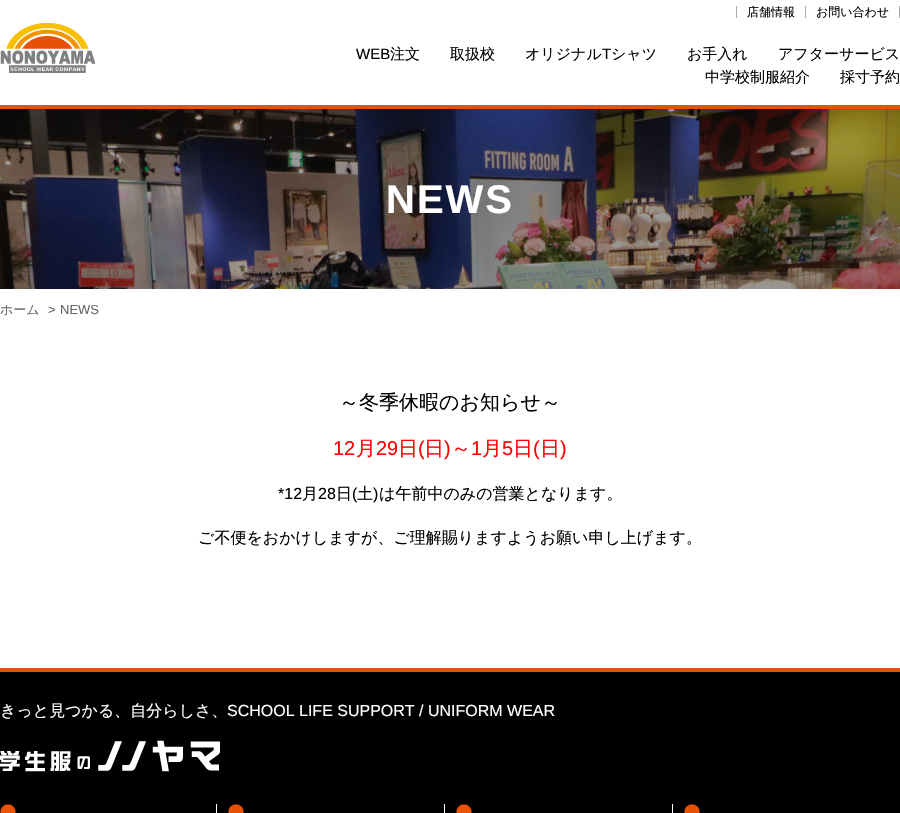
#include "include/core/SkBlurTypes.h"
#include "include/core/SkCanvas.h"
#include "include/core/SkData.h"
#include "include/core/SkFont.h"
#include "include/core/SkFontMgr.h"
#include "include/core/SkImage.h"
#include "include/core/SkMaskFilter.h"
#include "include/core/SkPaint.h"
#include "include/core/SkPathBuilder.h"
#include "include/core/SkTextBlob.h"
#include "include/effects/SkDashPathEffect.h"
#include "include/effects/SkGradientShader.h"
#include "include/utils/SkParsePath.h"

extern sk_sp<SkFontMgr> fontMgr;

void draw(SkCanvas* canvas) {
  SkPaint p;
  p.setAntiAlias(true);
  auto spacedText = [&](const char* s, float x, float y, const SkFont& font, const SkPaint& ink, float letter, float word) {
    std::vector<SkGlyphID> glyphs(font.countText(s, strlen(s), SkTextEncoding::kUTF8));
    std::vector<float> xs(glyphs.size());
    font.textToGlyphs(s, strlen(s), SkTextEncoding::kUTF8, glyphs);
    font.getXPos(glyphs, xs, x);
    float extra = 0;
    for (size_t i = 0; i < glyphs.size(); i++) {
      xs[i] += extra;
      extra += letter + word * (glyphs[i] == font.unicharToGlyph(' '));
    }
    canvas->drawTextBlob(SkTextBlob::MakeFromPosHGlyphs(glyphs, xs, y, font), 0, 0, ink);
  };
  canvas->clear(SK_ColorWHITE);
  p.setColor(SkColorSetRGB(232, 80, 7));
  canvas->drawRect(SkRect::MakeLTRB(0, 105, 900, 109), p);
  canvas->drawImageRect(SkImages::DeferredFromEncodedData(SkData::MakeFromFileName("images/1.png")), SkRect::MakeLTRB(0, 23, 96, 73), SkSamplingOptions());
  p.setColor(SkColorSetRGB(170, 170, 170));
  canvas->drawRect(SkRect::MakeLTRB(805, 6, 806, 18), p);
  canvas->drawRect(SkRect::MakeLTRB(736, 6, 737, 18), p);
  canvas->drawRect(SkRect::MakeLTRB(899, 6, 900, 18), p);
  canvas->drawImageRect(SkImages::DeferredFromEncodedData(SkData::MakeFromFileName("images/2.png")), SkRect::MakeLTRB(0, 109, 900, 289), SkSamplingOptions());
  p.setColor(SK_ColorBLACK);
  canvas->drawRect(SkRect::MakeLTRB(0, 672, 900, 813), p);
  p.setColor(SkColorSetRGB(232, 80, 7));
  canvas->drawRect(SkRect::MakeLTRB(0, 668, 900, 672), p);
  canvas->drawImageRect(SkImages::DeferredFromEncodedData(SkData::MakeFromFileName("images/3.png")), SkRect::MakeLTRB(0, 740, 220, 772), SkSamplingOptions());
  p.setColor(SK_ColorWHITE);
  canvas->drawRect(SkRect::MakeLTRB(216, 804, 217, 813), p);
  canvas->drawImageRect(SkImages::DeferredFromEncodedData(SkData::MakeFromFileName("images/4.png")), SkRect::MakeLTRB(0, 804, 16, 813), SkSamplingOptions());
  canvas->drawRect(SkRect::MakeLTRB(444, 804, 445, 813), p);
  canvas->drawImageRect(SkImages::DeferredFromEncodedData(SkData::MakeFromFileName("images/4.png")), SkRect::MakeLTRB(228, 804, 244, 813), SkSamplingOptions());
  canvas->drawRect(SkRect::MakeLTRB(672, 804, 673, 813), p);
  canvas->drawImageRect(SkImages::DeferredFromEncodedData(SkData::MakeFromFileName("images/4.png")), SkRect::MakeLTRB(456, 804, 472, 813), SkSamplingOptions());
  canvas->drawImageRect(SkImages::DeferredFromEncodedData(SkData::MakeFromFileName("images/4.png")), SkRect::MakeLTRB(684, 804, 700, 813), SkSamplingOptions());
  SkFont font1(fontMgr->matchFamilyStyle("WenQuanYi Zen Hei", SkFontStyle(500, SkFontStyle::kNormal_Width, SkFontStyle::kUpright_Slant)), 12);
  font1.setSubpixel(true);
  p.setColor(SK_ColorBLACK);
  canvas->drawString("店舗情報", 747, 16, font1, p);
  canvas->drawString("お問い合わせ", 816, 16, font1, p);
  SkFont font2(fontMgr->matchFamilyStyle("Liberation Sans", SkFontStyle::Normal()), 15);
  font2.setSubpixel(true);
  canvas->drawString("WEB", 356, 59, font2, p);
  SkFont font3(fontMgr->matchFamilyStyle("WenQuanYi Zen Hei", SkFontStyle(500, SkFontStyle::kNormal_Width, SkFontStyle::kUpright_Slant)), 15);
  font3.setSubpixel(true);
  canvas->drawString("注文", 390, 59, font3, p);
  canvas->drawString("取扱校", 450, 59, font3, p);
  canvas->drawString("オリジナル", 525, 59, font3, p);
  canvas->drawString("T", 602, 59, font2, p);
  canvas->drawString("シャツ", 611, 59, font3, p);
  canvas->drawString("お手入れ", 687, 59, font3, p);
  canvas->drawString("アフターサービス", 778, 59, font3, p);
  canvas->drawString("中学校制服紹介", 705, 82, font3, p);
  canvas->drawString("採寸予約", 840, 82, font3, p);
  SkFont font4(fontMgr->matchFamilyStyle("Liberation Sans", SkFontStyle::Bold()), 40);
  font4.setSubpixel(true);
  p.setColor(SK_ColorWHITE);
  spacedText("NEWS", 386, 213, font4, p, 2, 0);
  SkFont font5(fontMgr->matchFamilyStyle("WenQuanYi Zen Hei", SkFontStyle(500, SkFontStyle::kNormal_Width, SkFontStyle::kUpright_Slant)), 13);
  font5.setSubpixel(true);
  p.setColor(SkColorSetRGB(101, 103, 102));
  canvas->drawString("ホーム", 0, 314, font5, p);
  SkFont font6(fontMgr->matchFamilyStyle("Liberation Sans", SkFontStyle::Normal()), 13);
  font6.setSubpixel(true);
  canvas->drawString(">", 48, 314, font6, p);
  canvas->drawString("NEWS", 60, 314, font6, p);
  SkFont font7(fontMgr->matchFamilyStyle("WenQuanYi Zen Hei", SkFontStyle(500, SkFontStyle::kNormal_Width, SkFontStyle::kUpright_Slant)), 20);
  font7.setSubpixel(true);
  p.setColor(SK_ColorBLACK);
  canvas->drawString("～冬季休暇のお知らせ～", 339, 409, font7, p);
  SkFont font8(fontMgr->matchFamilyStyle("Liberation Sans", SkFontStyle::Normal()), 20);
  font8.setSubpixel(true);
  p.setColor(SkColorSetRGB(255, 0, 0));
  canvas->drawString("12", 333, 455, font8, p);
  canvas->drawString("月", 356, 455, font7, p);
  canvas->drawString("29", 376, 455, font8, p);
  canvas->drawString("日", 398, 455, font7, p);
  canvas->drawString("(", 418, 455, font8, p);
  canvas->drawString("日", 424, 455, font7, p);
  canvas->drawString(")", 444, 455, font8, p);
  canvas->drawString("～", 451, 455, font7, p);
  canvas->drawString("1", 471, 455, font8, p);
  canvas->drawString("月", 482, 455, font7, p);
  canvas->drawString("5", 502, 455, font8, p);
  canvas->drawString("日", 513, 455, font7, p);
  canvas->drawString("(", 533, 455, font8, p);
  canvas->drawString("日", 540, 455, font7, p);
  canvas->drawString(")", 560, 455, font8, p);
  SkFont font9(fontMgr->matchFamilyStyle("Liberation Sans", SkFontStyle::Normal()), 16);
  font9.setSubpixel(true);
  p.setColor(SK_ColorBLACK);
  canvas->drawString("*12", 278, 499, font9, p);
  SkFont font10(fontMgr->matchFamilyStyle("WenQuanYi Zen Hei", SkFontStyle(500, SkFontStyle::kNormal_Width, SkFontStyle::kUpright_Slant)), 16);
  font10.setSubpixel(true);
  canvas->drawString("月", 302, 499, font10, p);
  canvas->drawString("28", 318, 499, font9, p);
  canvas->drawString("日", 336, 499, font10, p);
  canvas->drawString("(", 352, 499, font9, p);
  canvas->drawString("土", 357, 499, font10, p);
  canvas->drawString(")", 373, 499, font9, p);
  canvas->drawString("は午前中のみの営業となります。", 379, 499, font10, p);
  canvas->drawString("ご不便をおかけしますが、ご理解賜りますようお願い申し上げます。", 198, 543, font10, p);
  p.setColor(SK_ColorWHITE);
  canvas->drawString("きっと見つかる、自分らしさ、", 0, 716, font10, p);
  canvas->drawString("SCHOOL LIFE SUPPORT / UNIFORM WEAR", 227, 716, font9, p);
}
